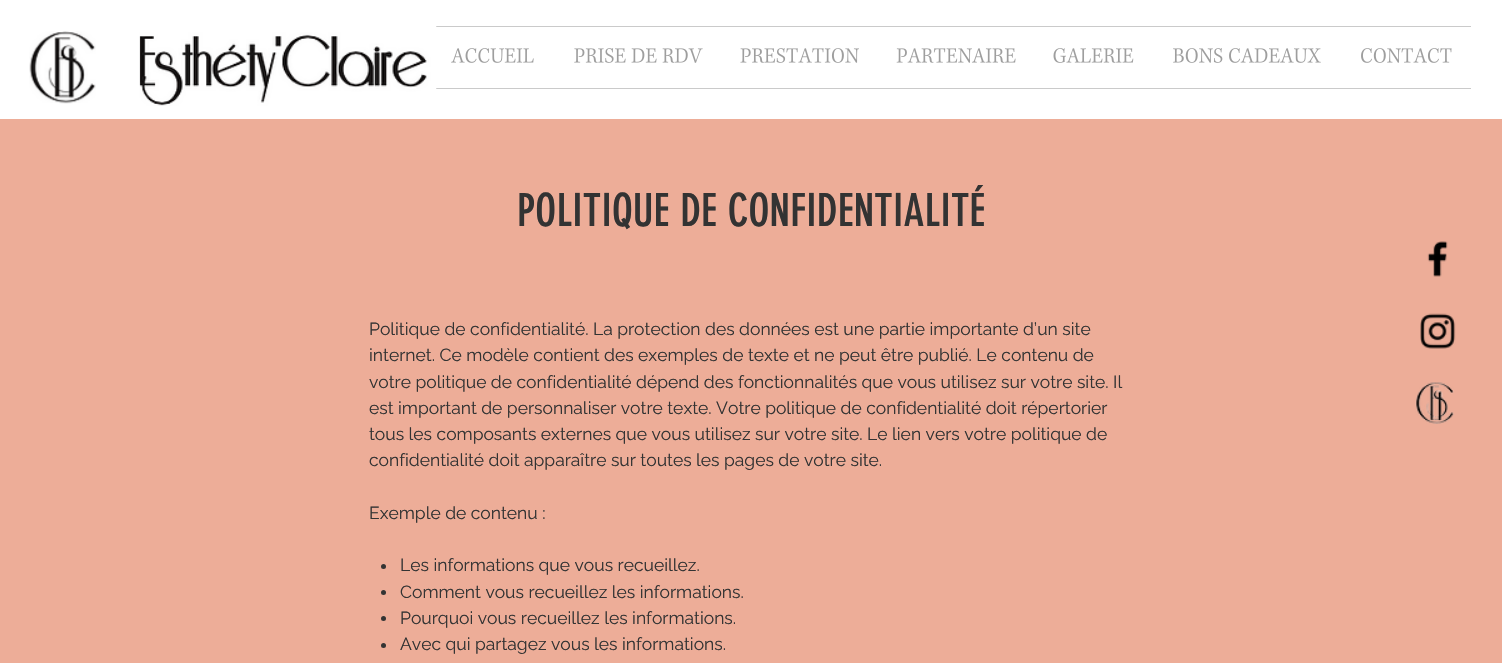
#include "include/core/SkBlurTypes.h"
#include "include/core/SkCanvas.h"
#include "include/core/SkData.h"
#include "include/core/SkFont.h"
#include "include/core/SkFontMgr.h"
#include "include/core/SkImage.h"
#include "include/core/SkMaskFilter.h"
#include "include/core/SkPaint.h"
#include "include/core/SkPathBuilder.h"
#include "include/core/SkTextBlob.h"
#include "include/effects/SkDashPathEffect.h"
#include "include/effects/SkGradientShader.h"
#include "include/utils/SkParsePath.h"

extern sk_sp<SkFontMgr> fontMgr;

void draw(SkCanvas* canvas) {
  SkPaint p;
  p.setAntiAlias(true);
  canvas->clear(SkColorSetRGB(237, 173, 152));
  p.setColor(SK_ColorWHITE);
  canvas->drawRect(SkRect::MakeLTRB(0, 0, 1502, 119), p);
  canvas->drawImageRect(SkImages::DeferredFromEncodedData(SkData::MakeFromFileName("images/1.png")), SkRect::MakeLTRB(29, 31, 96, 104), SkSamplingOptions());
  p.setColor(SkColorSetRGB(202, 202, 202));
  canvas->drawRect(SkRect::MakeLTRB(431, 26, 1471, 27), p);
  canvas->drawRect(SkRect::MakeLTRB(431, 88, 1471, 89), p);
  canvas->drawImageRect(SkImages::DeferredFromEncodedData(SkData::MakeFromFileName("images/2.png")), SkRect::MakeLTRB(139, 26, 437, 106), SkSamplingOptions());
  canvas->drawImageRect(SkImages::DeferredFromEncodedData(SkData::MakeFromFileName("images/3.png")), SkRect::MakeLTRB(451, 48, 534, 63), SkSamplingOptions());
  canvas->drawImageRect(SkImages::DeferredFromEncodedData(SkData::MakeFromFileName("images/4.png")), SkRect::MakeLTRB(574, 48, 703, 63), SkSamplingOptions());
  canvas->drawImageRect(SkImages::DeferredFromEncodedData(SkData::MakeFromFileName("images/5.png")), SkRect::MakeLTRB(740, 48, 859, 63), SkSamplingOptions());
  canvas->drawImageRect(SkImages::DeferredFromEncodedData(SkData::MakeFromFileName("images/6.png")), SkRect::MakeLTRB(896, 48, 1016, 63), SkSamplingOptions());
  canvas->drawImageRect(SkImages::DeferredFromEncodedData(SkData::MakeFromFileName("images/7.png")), SkRect::MakeLTRB(1053, 48, 1134, 63), SkSamplingOptions());
  canvas->drawImageRect(SkImages::DeferredFromEncodedData(SkData::MakeFromFileName("images/8.png")), SkRect::MakeLTRB(1173, 48, 1321, 63), SkSamplingOptions());
  canvas->drawImageRect(SkImages::DeferredFromEncodedData(SkData::MakeFromFileName("images/9.png")), SkRect::MakeLTRB(1361, 48, 1452, 63), SkSamplingOptions());
  p.setColor(SkColorSetRGB(51, 51, 51));
  canvas->drawCircle(383.5f, 566.5f, 2.5f, p);
  canvas->drawCircle(383.5f, 592.5f, 2.5f, p);
  canvas->drawCircle(383.5f, 618.5f, 2.5f, p);
  canvas->drawCircle(383.5f, 645.5f, 2.5f, p);
  canvas->drawImageRect(SkImages::DeferredFromEncodedData(SkData::MakeFromFileName("images/10.png")), SkRect::MakeLTRB(1427, 241, 1448, 277), SkSamplingOptions());
  canvas->drawImageRect(SkImages::DeferredFromEncodedData(SkData::MakeFromFileName("images/11.png")), SkRect::MakeLTRB(1420, 313, 1456, 349), SkSamplingOptions());
  canvas->drawImageRect(SkImages::DeferredFromEncodedData(SkData::MakeFromFileName("images/12.png")), SkRect::MakeLTRB(1415, 382, 1454, 424), SkSamplingOptions());
  SkFont font1(fontMgr->matchFamilyStyle("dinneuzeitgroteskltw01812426", SkFontStyle::Normal()), 45);
  font1.setSubpixel(true);
  canvas->drawString("POLITIQUE DE CONFIDENTIALITÉ", 517, 226, font1, p);
  SkFont font2(fontMgr->matchFamilyStyle("Raleway", SkFontStyle::Normal()), 17.5f);
  font2.setSubpixel(true);
  canvas->drawString("Politique de confidentialité. La protection des données est une partie importante d’un site", 369, 335, font2, p);
  canvas->drawString("internet. Ce modèle contient des exemples de texte et ne peut être publié. Le contenu de", 369, 361, font2, p);
  canvas->drawString("votre politique de confidentialité dépend des fonctionnalités que vous utilisez sur votre site. Il", 369, 388, font2, p);
  canvas->drawString("est important de personnaliser votre texte. Votre politique de confidentialité doit répertorier", 369, 414, font2, p);
  canvas->drawString("tous les composants externes que vous utilisez sur votre site. Le lien vers votre politique de", 369, 440, font2, p);
  canvas->drawString("confidentialité doit apparaître sur toutes les pages de votre site.", 369, 466, font2, p);
  canvas->drawString("Exemple de contenu :", 369, 519, font2, p);
  canvas->drawString("Les informations que vous recueillez.", 400, 571, font2, p);
  canvas->drawString("Comment vous recueillez les informations.", 400, 598, font2, p);
  canvas->drawString("Pourquoi vous recueillez les informations.", 400, 624, font2, p);
  canvas->drawString("Avec qui partagez vous les informations.", 400, 650, font2, p);
}
